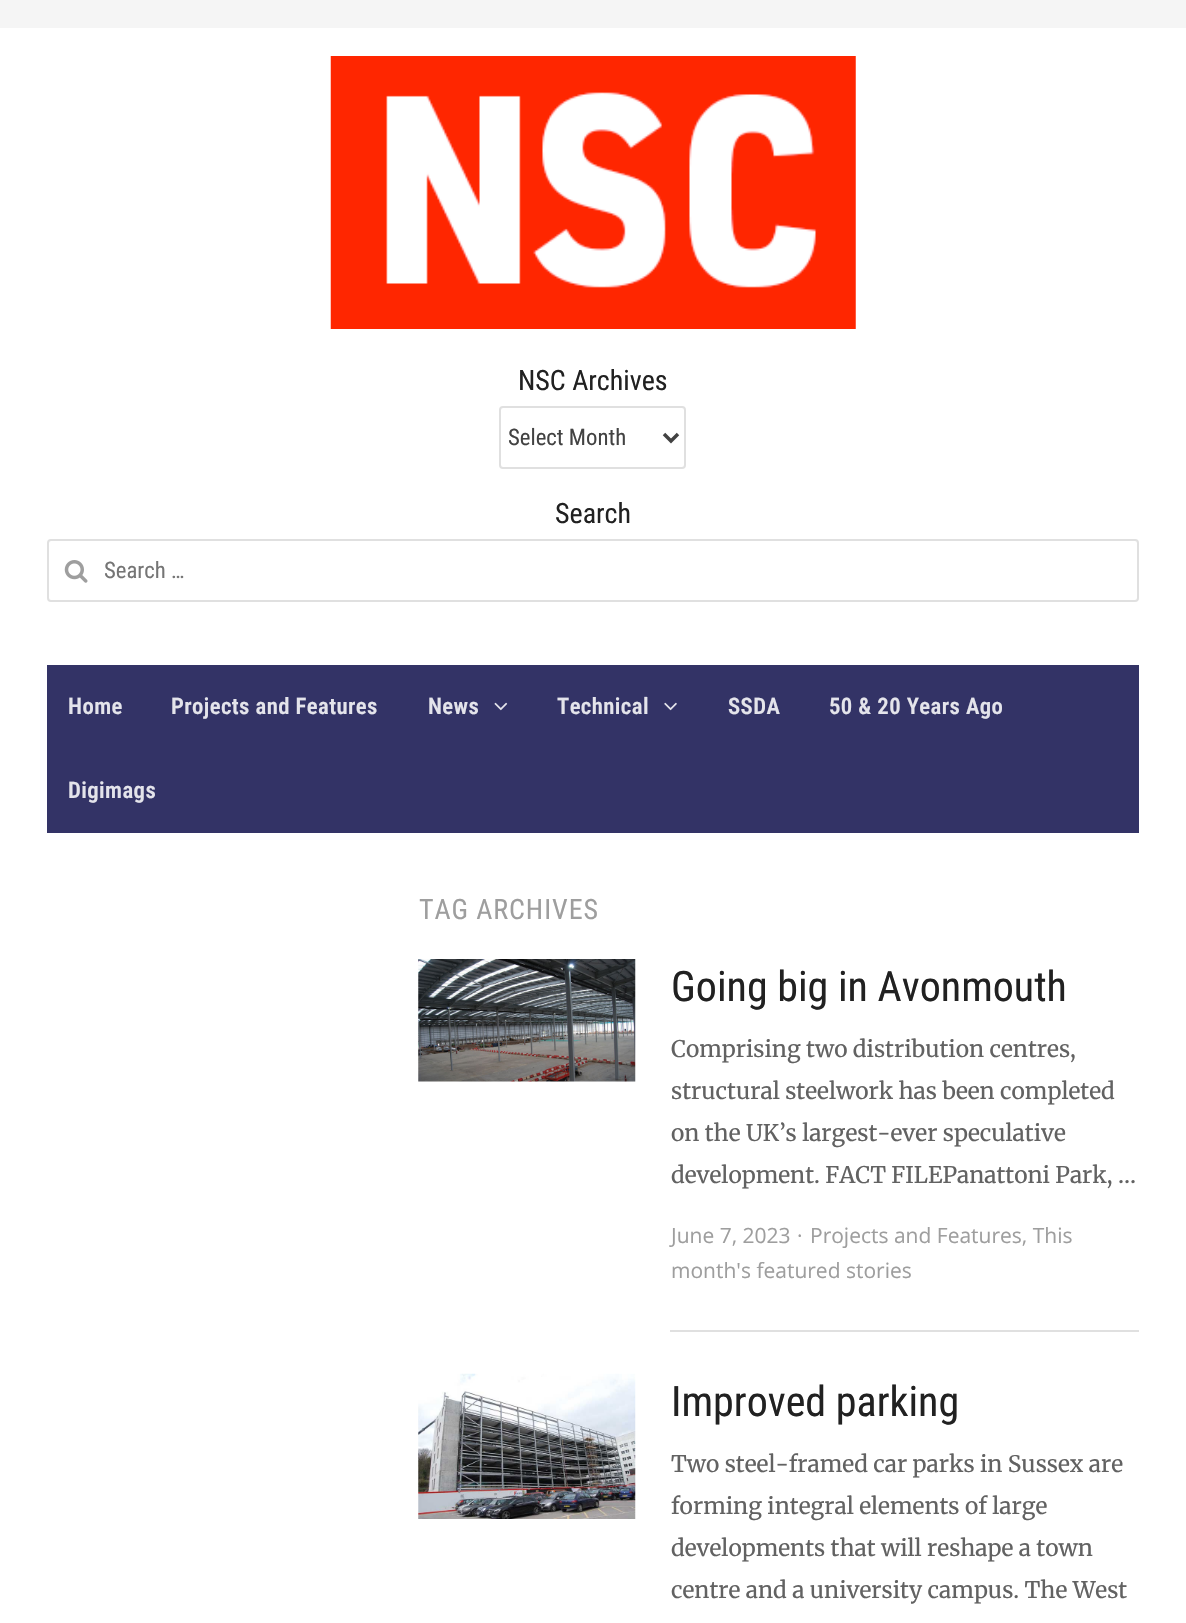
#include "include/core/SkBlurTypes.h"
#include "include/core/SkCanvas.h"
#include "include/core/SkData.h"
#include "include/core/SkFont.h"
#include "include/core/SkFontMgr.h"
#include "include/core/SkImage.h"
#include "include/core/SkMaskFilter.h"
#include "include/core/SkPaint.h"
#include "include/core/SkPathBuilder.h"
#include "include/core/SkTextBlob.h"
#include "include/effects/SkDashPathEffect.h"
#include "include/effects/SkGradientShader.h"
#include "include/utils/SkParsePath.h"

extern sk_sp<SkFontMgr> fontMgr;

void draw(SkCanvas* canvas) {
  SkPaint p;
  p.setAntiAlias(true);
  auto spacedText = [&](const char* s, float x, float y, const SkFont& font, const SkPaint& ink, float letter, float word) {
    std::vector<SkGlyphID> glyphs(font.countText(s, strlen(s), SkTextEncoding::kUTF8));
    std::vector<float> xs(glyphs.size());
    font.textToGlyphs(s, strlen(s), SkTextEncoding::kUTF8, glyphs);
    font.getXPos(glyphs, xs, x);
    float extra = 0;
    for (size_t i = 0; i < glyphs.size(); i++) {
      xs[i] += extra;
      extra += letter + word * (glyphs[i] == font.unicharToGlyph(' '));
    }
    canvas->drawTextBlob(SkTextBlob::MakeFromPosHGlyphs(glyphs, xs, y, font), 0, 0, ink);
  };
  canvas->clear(SK_ColorWHITE);
  p.setColor(SkColorSetRGB(245, 245, 245));
  canvas->drawRect(SkRect::MakeLTRB(0, 0, 1186, 28), p);
  canvas->drawImageRect(SkImages::DeferredFromEncodedData(SkData::MakeFromFileName("images/1.png")), SkRect::MakeLTRB(330, 56, 856, 329), SkSamplingOptions());
  p.setStyle(SkPaint::kStroke_Style);
  p.setStrokeWidth(2);
  p.setColor(SkColorSetRGB(224, 224, 224));
  canvas->drawRoundRect(SkRect::MakeLTRB(500, 407, 685, 468), 3, 3, p);
  p.setStrokeWidth(3.5f);
  p.setColor(SkColorSetRGB(66, 66, 66));
  canvas->drawPath(SkPathBuilder().moveTo(664, 434).lineTo(671, 441).lineTo(678, 434).detach(), p);
  p.setStrokeWidth(2);
  p.setColor(SkColorSetRGB(224, 224, 224));
  canvas->drawRoundRect(SkRect::MakeLTRB(48, 540, 1138, 601), 3, 3, p);
  canvas->drawImageRect(SkImages::DeferredFromEncodedData(SkData::MakeFromFileName("images/2.png")), SkRect::MakeLTRB(64, 560, 88, 583), SkSamplingOptions());
  p.setStyle(SkPaint::kFill_Style);
  p.setColor(SkColorSetRGB(51, 51, 102));
  canvas->drawRect(SkRect::MakeLTRB(47, 665, 1139, 833), p);
  canvas->drawImageRect(SkImages::DeferredFromEncodedData(SkData::MakeFromFileName("images/3.png")), SkRect::MakeLTRB(494, 702, 508, 711), SkSamplingOptions());
  canvas->drawImageRect(SkImages::DeferredFromEncodedData(SkData::MakeFromFileName("images/4.png")), SkRect::MakeLTRB(664, 702, 677, 711), SkSamplingOptions());
  canvas->drawImageRect(SkImages::DeferredFromEncodedData(SkData::MakeFromFileName("images/5.png")), SkRect::MakeLTRB(418, 959, 636, 1082), SkSamplingOptions());
  p.setColor(SkColorSetRGB(224, 224, 224));
  canvas->drawRect(SkRect::MakeLTRB(670, 1330, 1139, 1332), p);
  canvas->drawImageRect(SkImages::DeferredFromEncodedData(SkData::MakeFromFileName("images/6.png")), SkRect::MakeLTRB(418, 1373, 636, 1519), SkSamplingOptions());
  SkFont font1(fontMgr->matchFamilyStyle("Roboto Condensed", SkFontStyle::Normal()), 28);
  font1.setSubpixel(true);
  p.setColor(SkColorSetRGB(33, 33, 33));
  canvas->drawString("NSC Archives", 518, 390, font1, p);
  SkFont font2(fontMgr->matchFamilyStyle("Roboto Condensed", SkFontStyle::Normal()), 22.75f);
  font2.setSubpixel(true);
  p.setColor(SkColorSetRGB(66, 66, 66));
  canvas->drawString("Select Month", 508, 445, font2, p);
  p.setColor(SkColorSetRGB(33, 33, 33));
  canvas->drawString("Search", 555, 523, font1, p);
  p.setColor(SkColorSetRGB(117, 117, 117));
  canvas->drawString("Search …", 104, 578, font2, p);
  SkFont font3(fontMgr->matchFamilyStyle("Roboto Condensed", SkFontStyle(600, SkFontStyle::kNormal_Width, SkFontStyle::kUpright_Slant)), 22.75f);
  font3.setSubpixel(true);
  p.setColor(SkColorSetRGB(228, 228, 235));
  spacedText("Home", 68, 714, font3, p, 0.4f, 0);
  spacedText("Projects and Features", 171, 714, font3, p, 0.4f, 0);
  spacedText("News", 428, 714, font3, p, 0.4f, 0);
  spacedText("Technical", 557, 714, font3, p, 0.4f, 0);
  spacedText("SSDA", 728, 714, font3, p, 0.4f, 0);
  spacedText("50 & 20 Years Ago", 829, 714, font3, p, 0.4f, 0);
  spacedText("Digimags", 68, 798, font3, p, 0.4f, 0);
  p.setColor(SkColorSetRGB(158, 158, 158));
  spacedText("TAG ARCHIVES", 419, 919, font1, p, 0.9f, 0);
  SkFont font4(fontMgr->matchFamilyStyle("Roboto Condensed", SkFontStyle::Normal()), 42);
  font4.setSubpixel(true);
  p.setColor(SkColorSetRGB(33, 33, 33));
  canvas->drawString("Going big in Avonmouth", 671, 1001, font4, p);
  SkFont font5(fontMgr->matchFamilyStyle("Merriweather", SkFontStyle::Normal()), 22.75f);
  font5.setSubpixel(true);
  p.setColor(SkColorSetRGB(98, 98, 98));
  canvas->drawString("Comprising two distribution centres,", 671, 1057, font5, p);
  canvas->drawString("structural steelwork has been completed", 671, 1099, font5, p);
  canvas->drawString("on the UK’s largest-ever speculative", 671, 1141, font5, p);
  canvas->drawString("development. FACT FILEPanattoni Park, …", 671, 1183, font5, p);
  SkFont font6(fontMgr->matchFamilyStyle("Open Sans", SkFontStyle::Normal()), 21);
  font6.setSubpixel(true);
  p.setColor(SkColorSetRGB(158, 158, 158));
  canvas->drawString("June 7, 2023", 671, 1243, font6, p);
  canvas->drawString("·", 797, 1243, font6, p);
  canvas->drawString("Projects and Features, This", 810, 1243, font6, p);
  canvas->drawString("month's featured stories", 671, 1278, font6, p);
  p.setColor(SkColorSetRGB(33, 33, 33));
  canvas->drawString("Improved parking", 671, 1416, font4, p);
  p.setColor(SkColorSetRGB(98, 98, 98));
  canvas->drawString("Two steel-framed car parks in Sussex are", 671, 1472, font5, p);
  canvas->drawString("forming integral elements of large", 671, 1514, font5, p);
  canvas->drawString("developments that will reshape a town", 671, 1556, font5, p);
  canvas->drawString("centre and a university campus. The West", 671, 1598, font5, p);
}
